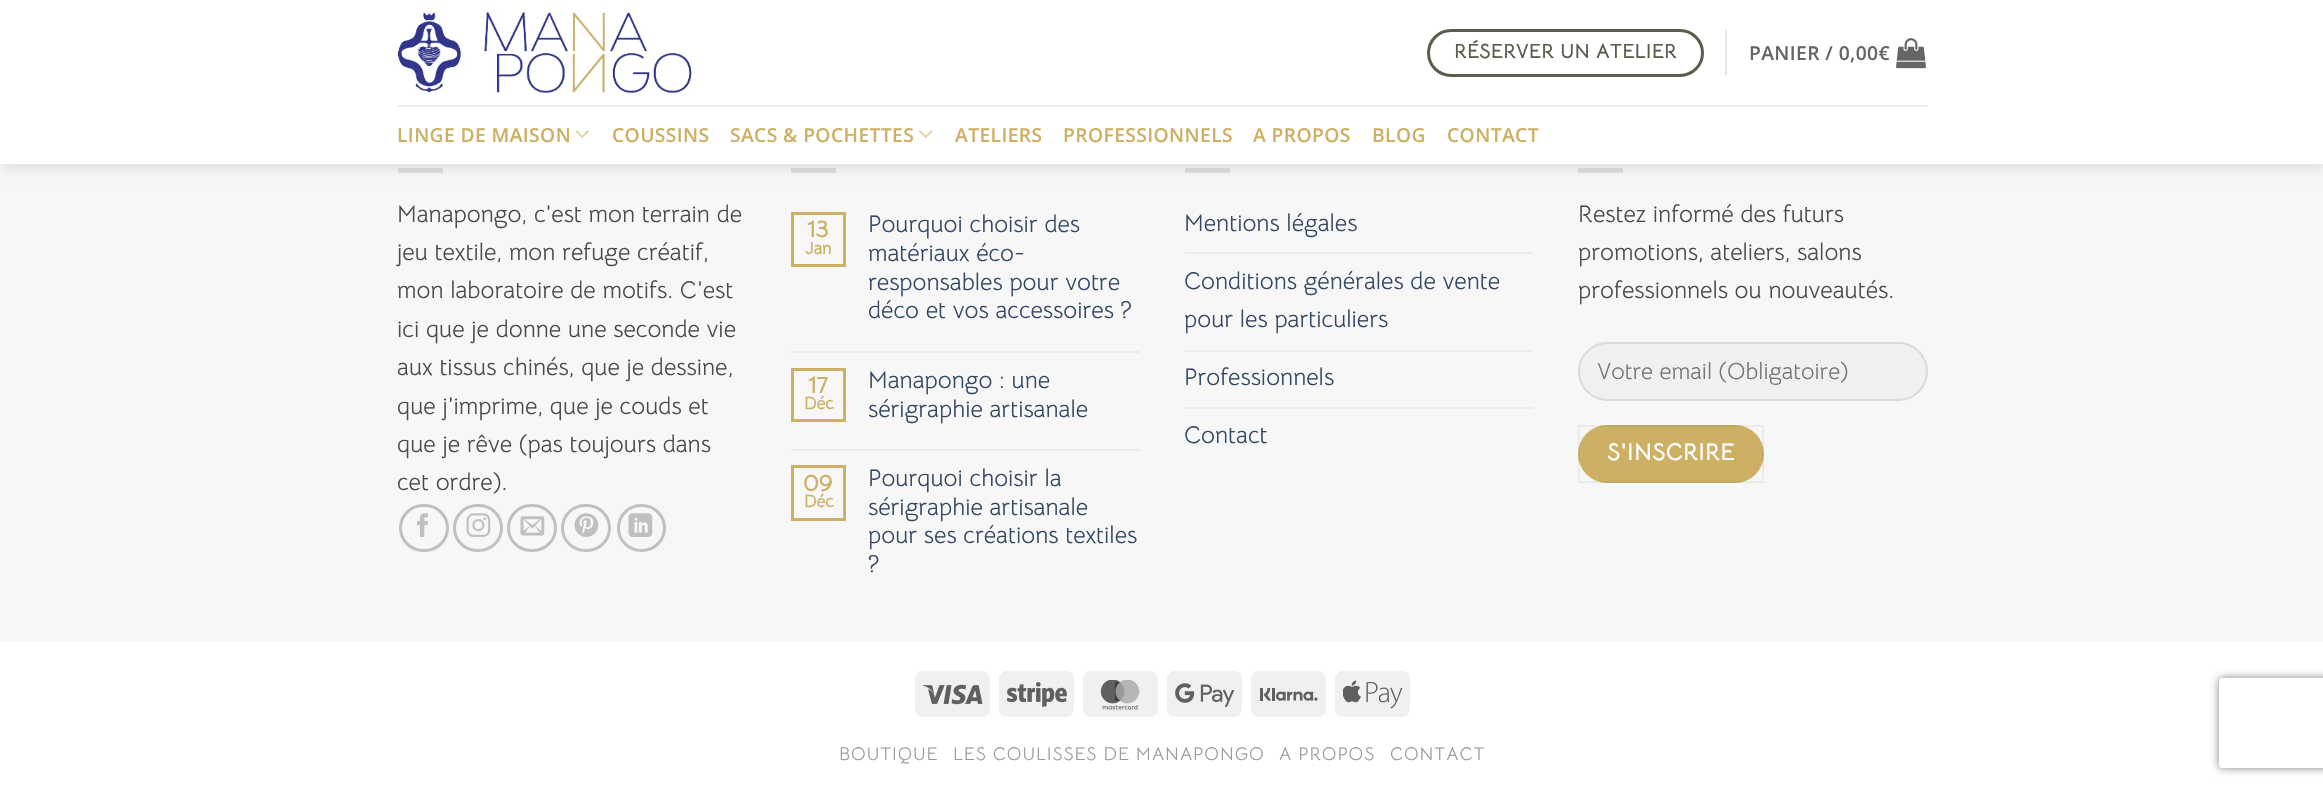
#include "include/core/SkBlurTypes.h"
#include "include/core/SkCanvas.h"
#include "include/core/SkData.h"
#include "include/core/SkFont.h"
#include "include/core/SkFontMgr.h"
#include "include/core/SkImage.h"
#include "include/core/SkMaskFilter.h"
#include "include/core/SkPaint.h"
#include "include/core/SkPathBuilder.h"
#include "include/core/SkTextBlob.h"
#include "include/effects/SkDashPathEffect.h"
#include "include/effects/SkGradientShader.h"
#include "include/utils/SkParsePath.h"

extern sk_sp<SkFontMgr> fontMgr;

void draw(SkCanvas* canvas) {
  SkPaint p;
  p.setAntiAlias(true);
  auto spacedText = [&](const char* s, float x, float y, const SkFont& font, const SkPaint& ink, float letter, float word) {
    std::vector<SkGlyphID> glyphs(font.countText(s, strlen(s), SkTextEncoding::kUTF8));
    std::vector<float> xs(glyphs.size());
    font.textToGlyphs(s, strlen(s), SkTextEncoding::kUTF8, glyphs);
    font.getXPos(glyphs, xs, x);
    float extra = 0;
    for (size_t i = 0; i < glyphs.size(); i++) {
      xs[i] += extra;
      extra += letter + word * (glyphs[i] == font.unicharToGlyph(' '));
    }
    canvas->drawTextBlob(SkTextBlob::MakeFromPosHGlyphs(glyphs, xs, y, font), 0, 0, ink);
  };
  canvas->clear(SK_ColorWHITE);
  p.setColor(SkColorSetRGB(247, 247, 247));
  canvas->drawRect(SkRect::MakeLTRB(0, 164, 2323, 641), p);
  p.setColor(SkColorSetRGB(222, 222, 222));
  canvas->drawRect(SkRect::MakeLTRB(398, 168, 443, 173), p);
  canvas->drawRect(SkRect::MakeLTRB(791, 168, 836, 173), p);
  canvas->drawRect(SkRect::MakeLTRB(1185, 168, 1230, 173), p);
  canvas->drawRect(SkRect::MakeLTRB(1578, 168, 1623, 173), p);
  p.setColor(SkColorSetARGB(38, 0, 0, 0));
  p.setMaskFilter(SkMaskFilter::MakeBlur(kNormal_SkBlurStyle, 7.5f));
  canvas->drawRect(SkRect::MakeLTRB(2, 2, 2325, 165), p);
  p.setMaskFilter(nullptr);
  p.setColor(SK_ColorWHITE);
  canvas->drawRect(SkRect::MakeLTRB(0, 0, 2323, 164), p);
  canvas->drawImageRect(SkImages::DeferredFromEncodedData(SkData::MakeFromFileName("images/1.png")), SkRect::MakeLTRB(397, 10, 693, 94), SkSamplingOptions());
  p.setStyle(SkPaint::kStroke_Style);
  p.setStrokeWidth(3);
  p.setColor(SkColorSetRGB(90, 93, 76));
  canvas->drawRoundRect(SkRect::MakeLTRB(1428.5f, 30.5f, 1702.5f, 75.5f), 22.5f, 22.5f, p);
  p.setStyle(SkPaint::kFill_Style);
  p.setColor(SkColorSetRGB(230, 230, 230));
  canvas->drawRect(SkRect::MakeLTRB(1725, 30, 1727, 75), p);
  canvas->drawImageRect(SkImages::DeferredFromEncodedData(SkData::MakeFromFileName("images/2.png")), SkRect::MakeLTRB(1896, 38, 1926, 69), SkSamplingOptions());
  p.setColor(SkColorSetRGB(237, 237, 237));
  canvas->drawRect(SkRect::MakeLTRB(398, 105, 1928, 107), p);
  canvas->drawImageRect(SkImages::DeferredFromEncodedData(SkData::MakeFromFileName("images/3.png")), SkRect::MakeLTRB(575, 130, 589, 138), SkSamplingOptions());
  canvas->drawImageRect(SkImages::DeferredFromEncodedData(SkData::MakeFromFileName("images/4.png")), SkRect::MakeLTRB(919, 130, 933, 138), SkSamplingOptions());
  p.setStyle(SkPaint::kStroke_Style);
  p.setColor(SkColorSetRGB(192, 192, 192));
  canvas->drawRoundRect(SkRect::MakeLTRB(400.5f, 505.5f, 447.5f, 550.5f), 22.5f, 22.5f, p);
  canvas->drawImageRect(SkImages::DeferredFromEncodedData(SkData::MakeFromFileName("images/5.png")), SkRect::MakeLTRB(417, 513, 428, 537), SkSamplingOptions());
  canvas->drawRoundRect(SkRect::MakeLTRB(454.5f, 505.5f, 501.5f, 550.5f), 22.5f, 22.5f, p);
  canvas->drawImageRect(SkImages::DeferredFromEncodedData(SkData::MakeFromFileName("images/6.png")), SkRect::MakeLTRB(466, 513, 491, 537), SkSamplingOptions());
  canvas->drawRoundRect(SkRect::MakeLTRB(508.5f, 505.5f, 555.5f, 550.5f), 22.5f, 22.5f, p);
  canvas->drawImageRect(SkImages::DeferredFromEncodedData(SkData::MakeFromFileName("images/7.png")), SkRect::MakeLTRB(520, 516, 545, 536), SkSamplingOptions());
  canvas->drawRoundRect(SkRect::MakeLTRB(562.5f, 505.5f, 609.5f, 550.5f), 22.5f, 22.5f, p);
  canvas->drawImageRect(SkImages::DeferredFromEncodedData(SkData::MakeFromFileName("images/8.png")), SkRect::MakeLTRB(574, 513, 599, 537), SkSamplingOptions());
  canvas->drawRoundRect(SkRect::MakeLTRB(618.5f, 505.5f, 664.5f, 550.5f), 22.5f, 22.5f, p);
  canvas->drawImageRect(SkImages::DeferredFromEncodedData(SkData::MakeFromFileName("images/9.png")), SkRect::MakeLTRB(628, 513, 653, 537), SkSamplingOptions());
  p.setColor(SkColorSetRGB(205, 176, 100));
  canvas->drawRect(SkRect::MakeLTRB(792.5f, 213.5f, 844.5f, 265.5f), p);
  p.setStyle(SkPaint::kFill_Style);
  p.setColor(SkColorSetRGB(236, 236, 236));
  canvas->drawRect(SkRect::MakeLTRB(791, 351, 1140, 353), p);
  p.setStyle(SkPaint::kStroke_Style);
  p.setColor(SkColorSetRGB(205, 176, 100));
  canvas->drawRect(SkRect::MakeLTRB(792.5f, 369.5f, 844.5f, 420.5f), p);
  p.setStyle(SkPaint::kFill_Style);
  p.setColor(SkColorSetRGB(236, 236, 236));
  canvas->drawRect(SkRect::MakeLTRB(791, 449, 1140, 451), p);
  p.setStyle(SkPaint::kStroke_Style);
  p.setColor(SkColorSetRGB(205, 176, 100));
  canvas->drawRect(SkRect::MakeLTRB(792.5f, 466.5f, 844.5f, 519.5f), p);
  p.setStyle(SkPaint::kFill_Style);
  p.setColor(SkColorSetRGB(236, 236, 236));
  canvas->drawRect(SkRect::MakeLTRB(1185, 252, 1533, 254), p);
  canvas->drawRect(SkRect::MakeLTRB(1185, 350, 1533, 352), p);
  canvas->drawRect(SkRect::MakeLTRB(1185, 407, 1533, 409), p);
  p.setColor(SkColorSetRGB(240, 240, 240));
  canvas->drawRoundRect(SkRect::MakeLTRB(1578, 342, 1928, 401), 29.5f, 29.5f, p);
  p.setStyle(SkPaint::kStroke_Style);
  p.setStrokeWidth(2);
  p.setColor(SkColorSetARGB(23, 0, 0, 0));
  canvas->drawRoundRect(SkRect::MakeLTRB(1579, 343, 1927, 400), 28.5f, 28.5f, p);
  p.setStyle(SkPaint::kFill_Style);
  p.setColor(SkColorSetRGB(205, 176, 100));
  canvas->drawRoundRect(SkRect::MakeLTRB(1578, 425, 1764, 483), 29, 29, p);
  p.setStyle(SkPaint::kStroke_Style);
  p.setColor(SkColorSetARGB(13, 0, 0, 0));
  canvas->drawRect(SkRect::MakeLTRB(1579, 426, 1763, 482), p);
  p.setStyle(SkPaint::kFill_Style);
  p.setColor(SkColorSetRGB(240, 240, 240));
  canvas->drawRoundRect(SkRect::MakeLTRB(915, 671, 990, 717), 8, 8, p);
  canvas->drawImageRect(SkImages::DeferredFromEncodedData(SkData::MakeFromFileName("images/10.png")), SkRect::MakeLTRB(923, 684, 983, 705), SkSamplingOptions());
  canvas->drawRoundRect(SkRect::MakeLTRB(999, 671, 1074, 717), 8, 8, p);
  canvas->drawImageRect(SkImages::DeferredFromEncodedData(SkData::MakeFromFileName("images/11.png")), SkRect::MakeLTRB(1007, 682, 1067, 707), SkSamplingOptions());
  canvas->drawRoundRect(SkRect::MakeLTRB(1083, 671, 1158, 717), 8, 8, p);
  canvas->drawImageRect(SkImages::DeferredFromEncodedData(SkData::MakeFromFileName("images/12.png")), SkRect::MakeLTRB(1100, 680, 1140, 710), SkSamplingOptions());
  canvas->drawRoundRect(SkRect::MakeLTRB(1167, 671, 1242, 717), 8, 8, p);
  canvas->drawImageRect(SkImages::DeferredFromEncodedData(SkData::MakeFromFileName("images/13.png")), SkRect::MakeLTRB(1175, 683, 1235, 707), SkSamplingOptions());
  canvas->drawRoundRect(SkRect::MakeLTRB(1251, 671, 1326, 717), 8, 8, p);
  canvas->drawImageRect(SkImages::DeferredFromEncodedData(SkData::MakeFromFileName("images/14.png")), SkRect::MakeLTRB(1260, 687, 1318, 701), SkSamplingOptions());
  canvas->drawRoundRect(SkRect::MakeLTRB(1335, 671, 1410, 717), 8, 8, p);
  canvas->drawImageRect(SkImages::DeferredFromEncodedData(SkData::MakeFromFileName("images/15.png")), SkRect::MakeLTRB(1343, 680, 1403, 709), SkSamplingOptions());
  canvas->save();
  canvas->clipPath(SkPathBuilder(SkPathFillType::kEvenOdd).moveTo(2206, 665).lineTo(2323, 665).lineTo(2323, 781).lineTo(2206, 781).close().moveTo(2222, 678).lineTo(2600, 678).cubicTo(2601.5f, 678, 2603, 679.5f, 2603, 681).lineTo(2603, 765).cubicTo(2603, 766.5f, 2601.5f, 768, 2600, 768).lineTo(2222, 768).cubicTo(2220.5f, 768, 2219, 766.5f, 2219, 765).lineTo(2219, 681).cubicTo(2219, 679.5f, 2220.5f, 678, 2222, 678).close().detach(), true);
  p.setColor(SkColorSetRGB(128, 128, 128));
  p.setMaskFilter(SkMaskFilter::MakeBlur(kNormal_SkBlurStyle, 4));
  canvas->drawRoundRect(SkRect::MakeLTRB(2219, 678, 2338, 768), 3, 3, p);
  p.setMaskFilter(nullptr);
  canvas->restore();
  SkFont font1(fontMgr->matchFamilyStyle("Bellota Text", SkFontStyle::Bold()), 19.75f);
  font1.setSubpixel(true);
  p.setColor(SkColorSetRGB(90, 93, 76));
  spacedText("RÉSERVER UN ATELIER", 1454, 58, font1, p, 0.6f, 0);
  SkFont font2(fontMgr->matchFamilyStyle("Open Sans", SkFontStyle(600, SkFontStyle::kNormal_Width, SkFontStyle::kUpright_Slant)), 19.25f);
  font2.setSubpixel(true);
  p.setColor(SkColorSetRGB(101, 101, 101));
  spacedText("PANIER / 0,00€", 1749, 60, font2, p, 0.4f, 0);
  p.setColor(SkColorSetRGB(205, 176, 100));
  spacedText("LINGE DE MAISON", 397, 142, font2, p, 0.4f, 0);
  spacedText("COUSSINS", 612, 142, font2, p, 0.4f, 0);
  spacedText("SACS & POCHETTES", 730, 142, font2, p, 0.4f, 0);
  spacedText("ATELIERS", 955, 142, font2, p, 0.4f, 0);
  spacedText("PROFESSIONNELS", 1063, 142, font2, p, 0.4f, 0);
  spacedText("A PROPOS", 1253, 142, font2, p, 0.4f, 0);
  spacedText("BLOG", 1372, 142, font2, p, 0.4f, 0);
  spacedText("CONTACT", 1447, 142, font2, p, 0.4f, 0);
  SkFont font3(fontMgr->matchFamilyStyle("Bellota Text", SkFontStyle::Normal()), 24);
  font3.setSubpixel(true);
  p.setColor(SkColorSetRGB(74, 74, 74));
  canvas->drawString("Manapongo, c’est mon terrain de", 397, 222, font3, p);
  canvas->drawString("jeu textile, mon refuge créatif,", 397, 260, font3, p);
  canvas->drawString("mon laboratoire de motifs. C’est", 397, 298, font3, p);
  canvas->drawString("ici que je donne une seconde vie", 397, 337, font3, p);
  canvas->drawString("aux tissus chinés, que je dessine,", 397, 375, font3, p);
  canvas->drawString("que j’imprime, que je couds et", 397, 414, font3, p);
  canvas->drawString("que je rêve (pas toujours dans", 397, 452, font3, p);
  canvas->drawString("cet ordre).", 397, 490, font3, p);
  SkFont font4(fontMgr->matchFamilyStyle("Bellota Text", SkFontStyle::Bold()), 24);
  font4.setSubpixel(true);
  p.setColor(SkColorSetRGB(205, 176, 100));
  canvas->drawString("13", 807, 237, font4, p);
  SkFont font5(fontMgr->matchFamilyStyle("Bellota Text", SkFontStyle::Bold()), 17);
  font5.setSubpixel(true);
  canvas->drawString("Jan", 805, 254, font5, p);
  p.setColor(SkColorSetRGB(51, 72, 98));
  canvas->drawString("Pourquoi choisir des", 868, 232, font3, p);
  canvas->drawString("matériaux éco-", 868, 261, font3, p);
  canvas->drawString("responsables pour votre", 868, 290, font3, p);
  canvas->drawString("déco et vos accessoires ?", 868, 318, font3, p);
  p.setColor(SkColorSetRGB(205, 176, 100));
  canvas->drawString("17", 808, 393, font4, p);
  canvas->drawString("Déc", 804, 409, font5, p);
  p.setColor(SkColorSetRGB(51, 72, 98));
  canvas->drawString("Manapongo : une", 868, 388, font3, p);
  canvas->drawString("sérigraphie artisanale", 868, 417, font3, p);
  p.setColor(SkColorSetRGB(205, 176, 100));
  canvas->drawString("09", 803, 491, font4, p);
  canvas->drawString("Déc", 804, 507, font5, p);
  p.setColor(SkColorSetRGB(51, 72, 98));
  canvas->drawString("Pourquoi choisir la", 868, 486, font3, p);
  canvas->drawString("sérigraphie artisanale", 868, 515, font3, p);
  canvas->drawString("pour ses créations textiles", 868, 543, font3, p);
  canvas->drawString("?", 868, 572, font3, p);
  canvas->drawString("Mentions légales", 1184, 231, font3, p);
  canvas->drawString("Conditions générales de vente", 1184, 289, font3, p);
  canvas->drawString("pour les particuliers", 1184, 327, font3, p);
  canvas->drawString("Professionnels", 1184, 385, font3, p);
  canvas->drawString("Contact", 1184, 443, font3, p);
  p.setColor(SkColorSetRGB(74, 74, 74));
  canvas->drawString("Restez informé des futurs", 1578, 222, font3, p);
  canvas->drawString("promotions, ateliers, salons", 1578, 260, font3, p);
  canvas->drawString("professionnels ou nouveautés.", 1578, 298, font3, p);
  SkFont font6(fontMgr->matchFamilyStyle("Bellota Text", SkFontStyle::Normal()), 23.25f);
  font6.setSubpixel(true);
  p.setColor(SkColorSetRGB(117, 117, 117));
  canvas->drawString("Votre email (Obligatoire)", 1597, 379, font6, p);
  SkFont font7(fontMgr->matchFamilyStyle("Bellota Text", SkFontStyle::Bold()), 23.25f);
  font7.setSubpixel(true);
  p.setColor(SK_ColorWHITE);
  spacedText("S'INSCRIRE", 1607, 460, font7, p, 0.75f, 0);
  SkFont font8(fontMgr->matchFamilyStyle("Bellota Text", SkFontStyle::Normal()), 18.4f);
  font8.setSubpixel(true);
  p.setColor(SkColorSetRGB(153, 153, 153));
  spacedText("BOUTIQUE", 839, 760, font8, p, 0.9f, 0);
  spacedText("LES COULISSES DE MANAPONGO", 953, 760, font8, p, 0.9f, 0);
  spacedText("A PROPOS", 1279, 760, font8, p, 0.9f, 0);
  spacedText("CONTACT", 1390, 760, font8, p, 0.9f, 0);
}
